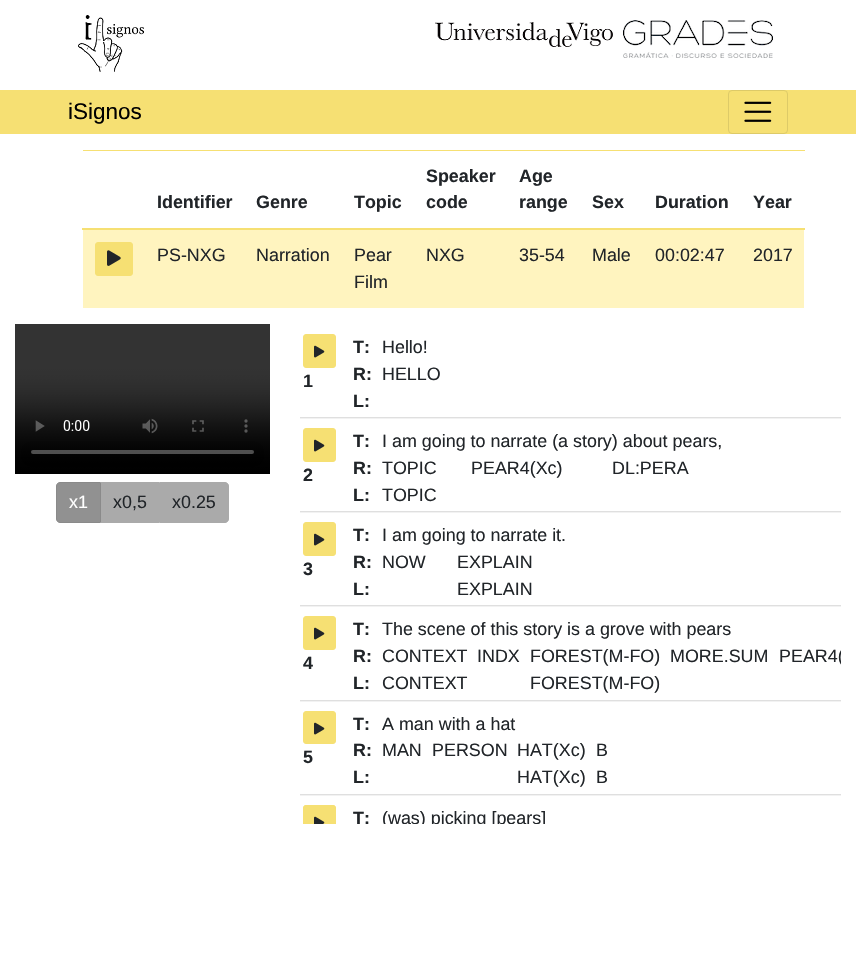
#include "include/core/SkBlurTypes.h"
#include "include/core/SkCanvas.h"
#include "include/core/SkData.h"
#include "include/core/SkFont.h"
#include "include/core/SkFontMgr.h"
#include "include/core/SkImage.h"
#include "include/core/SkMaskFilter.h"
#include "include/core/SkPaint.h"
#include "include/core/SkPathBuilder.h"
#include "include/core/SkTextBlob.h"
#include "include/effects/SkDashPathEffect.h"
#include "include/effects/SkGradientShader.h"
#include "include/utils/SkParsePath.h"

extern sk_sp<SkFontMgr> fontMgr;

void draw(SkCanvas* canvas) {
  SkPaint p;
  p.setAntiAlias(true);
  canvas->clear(SK_ColorWHITE);
  canvas->drawImageRect(SkImages::DeferredFromEncodedData(SkData::MakeFromFileName("images/1.png")), SkRect::MakeLTRB(78, 15, 144, 72), SkSamplingOptions());
  canvas->drawImageRect(SkImages::DeferredFromEncodedData(SkData::MakeFromFileName("images/2.png")), SkRect::MakeLTRB(435, 22, 613, 47), SkSamplingOptions());
  canvas->drawImageRect(SkImages::DeferredFromEncodedData(SkData::MakeFromFileName("images/3.png")), SkRect::MakeLTRB(623, 20, 773, 58), SkSamplingOptions());
  p.setColor(SkColorSetRGB(246, 224, 115));
  canvas->drawRect(SkRect::MakeLTRB(0, 90, 856, 134), p);
  p.setStyle(SkPaint::kStroke_Style);
  p.setStrokeWidth(1);
  p.setColor(SkColorSetRGB(221, 202, 104));
  canvas->drawRoundRect(SkRect::MakeLTRB(728.5f, 90.5f, 787.5f, 133.5f), 3.5f, 3.5f, p);
  canvas->drawImageRect(SkImages::DeferredFromEncodedData(SkData::MakeFromFileName("images/4.png")), SkRect::MakeLTRB(744, 101, 772, 122), SkSamplingOptions());
  p.setStyle(SkPaint::kFill_Style);
  p.setColor(SkColorSetRGB(246, 224, 115));
  canvas->drawRect(SkRect::MakeLTRB(83, 150, 805, 151), p);
  canvas->drawRect(SkRect::MakeLTRB(82, 228, 805, 230), p);
  p.setColor(SkColorSetRGB(255, 244, 191));
  canvas->drawRect(SkRect::MakeLTRB(83, 230, 804, 308), p);
  p.setColor(SkColorSetRGB(246, 224, 115));
  canvas->drawRoundRect(SkRect::MakeLTRB(95.5f, 242.5f, 132.5f, 275.5f), 2.5f, 2.5f, p);
  p.setStyle(SkPaint::kStroke_Style);
  canvas->drawRoundRect(SkRect::MakeLTRB(95.5f, 242.5f, 132.5f, 275.5f), 2.5f, 2.5f, p);
  canvas->drawImageRect(SkImages::DeferredFromEncodedData(SkData::MakeFromFileName("images/5.png")), SkRect::MakeLTRB(107, 250, 121, 266), SkSamplingOptions());
  canvas->drawImageRect(SkImages::DeferredFromEncodedData(SkData::MakeFromFileName("images/6.png")), SkRect::MakeLTRB(15, 324, 270, 474), SkSamplingOptions());
  p.setStyle(SkPaint::kFill_Style);
  p.setColor(SkColorSetRGB(145, 145, 145));
  canvas->drawPath(SkPathBuilder().moveTo(60, 482.5f).lineTo(100.5f, 482.5f).lineTo(100.5f, 522.5f).lineTo(60, 522.5f).cubicTo(58, 522.5f, 56.5f, 521, 56.5f, 519).lineTo(56.5f, 486).cubicTo(56.5f, 484, 58, 482.5f, 60, 482.5f).close().detach(), p);
  p.setStyle(SkPaint::kStroke_Style);
  p.setColor(SkColorSetRGB(138, 138, 138));
  canvas->drawPath(SkPathBuilder().moveTo(60, 482.5f).lineTo(100.5f, 482.5f).lineTo(100.5f, 522.5f).lineTo(60, 522.5f).cubicTo(58, 522.5f, 56.5f, 521, 56.5f, 519).lineTo(56.5f, 486).cubicTo(56.5f, 484, 58, 482.5f, 60, 482.5f).close().detach(), p);
  p.setStyle(SkPaint::kFill_Style);
  p.setColor(SkColorSetRGB(170, 170, 170));
  canvas->drawRect(SkRect::MakeLTRB(101, 482, 159, 523), p);
  canvas->drawPath(SkPathBuilder().moveTo(159.5f, 482.5f).lineTo(225, 482.5f).cubicTo(227, 482.5f, 228.5f, 484, 228.5f, 486).lineTo(228.5f, 519).cubicTo(228.5f, 521, 227, 522.5f, 225, 522.5f).lineTo(159.5f, 522.5f).close().detach(), p);
  p.setStyle(SkPaint::kStroke_Style);
  canvas->drawPath(SkPathBuilder().moveTo(159.5f, 482.5f).lineTo(225, 482.5f).cubicTo(227, 482.5f, 228.5f, 484, 228.5f, 486).lineTo(228.5f, 519).cubicTo(228.5f, 521, 227, 522.5f, 225, 522.5f).lineTo(159.5f, 522.5f).close().detach(), p);
  canvas->save();
  canvas->clipRect(SkRect::MakeLTRB(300, 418, 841, 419));
  p.setStyle(SkPaint::kFill_Style);
  p.setColor(SkColorSetARGB(13, 0, 0, 0));
  p.setMaskFilter(SkMaskFilter::MakeBlur(kNormal_SkBlurStyle, 0.5f));
  canvas->drawRect(SkRect::MakeLTRB(300, 325, 841, 419), p);
  p.setMaskFilter(nullptr);
  canvas->restore();
  p.setColor(SkColorSetRGB(223, 223, 223));
  canvas->drawRect(SkRect::MakeLTRB(300, 417, 841, 418), p);
  p.setColor(SkColorSetRGB(246, 224, 115));
  canvas->drawRoundRect(SkRect::MakeLTRB(303.5f, 334.5f, 335.5f, 367.5f), 2.5f, 2.5f, p);
  p.setStyle(SkPaint::kStroke_Style);
  canvas->drawRoundRect(SkRect::MakeLTRB(303.5f, 334.5f, 335.5f, 367.5f), 2.5f, 2.5f, p);
  canvas->drawImageRect(SkImages::DeferredFromEncodedData(SkData::MakeFromFileName("images/7.png")), SkRect::MakeLTRB(314, 345, 325, 358), SkSamplingOptions());
  canvas->save();
  canvas->clipRect(SkRect::MakeLTRB(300, 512, 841, 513));
  p.setStyle(SkPaint::kFill_Style);
  p.setColor(SkColorSetARGB(13, 0, 0, 0));
  p.setMaskFilter(SkMaskFilter::MakeBlur(kNormal_SkBlurStyle, 0.5f));
  canvas->drawRect(SkRect::MakeLTRB(300, 419, 841, 513), p);
  p.setMaskFilter(nullptr);
  canvas->restore();
  p.setColor(SkColorSetRGB(223, 223, 223));
  canvas->drawRect(SkRect::MakeLTRB(300, 511, 841, 512), p);
  p.setColor(SkColorSetRGB(246, 224, 115));
  canvas->drawRoundRect(SkRect::MakeLTRB(303.5f, 428.5f, 335.5f, 461.5f), 2.5f, 2.5f, p);
  p.setStyle(SkPaint::kStroke_Style);
  canvas->drawRoundRect(SkRect::MakeLTRB(303.5f, 428.5f, 335.5f, 461.5f), 2.5f, 2.5f, p);
  canvas->drawImageRect(SkImages::DeferredFromEncodedData(SkData::MakeFromFileName("images/7.png")), SkRect::MakeLTRB(314, 439, 325, 452), SkSamplingOptions());
  canvas->save();
  canvas->clipRect(SkRect::MakeLTRB(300, 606, 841, 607));
  p.setStyle(SkPaint::kFill_Style);
  p.setColor(SkColorSetARGB(13, 0, 0, 0));
  p.setMaskFilter(SkMaskFilter::MakeBlur(kNormal_SkBlurStyle, 0.5f));
  canvas->drawRect(SkRect::MakeLTRB(300, 513, 841, 607), p);
  p.setMaskFilter(nullptr);
  canvas->restore();
  p.setColor(SkColorSetRGB(223, 223, 223));
  canvas->drawRect(SkRect::MakeLTRB(300, 605, 841, 606), p);
  p.setColor(SkColorSetRGB(246, 224, 115));
  canvas->drawRoundRect(SkRect::MakeLTRB(303.5f, 522.5f, 335.5f, 555.5f), 2.5f, 2.5f, p);
  p.setStyle(SkPaint::kStroke_Style);
  canvas->drawRoundRect(SkRect::MakeLTRB(303.5f, 522.5f, 335.5f, 555.5f), 2.5f, 2.5f, p);
  canvas->drawImageRect(SkImages::DeferredFromEncodedData(SkData::MakeFromFileName("images/7.png")), SkRect::MakeLTRB(314, 533, 325, 546), SkSamplingOptions());
  canvas->save();
  canvas->clipRect(SkRect::MakeLTRB(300, 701, 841, 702));
  p.setStyle(SkPaint::kFill_Style);
  p.setColor(SkColorSetARGB(13, 0, 0, 0));
  p.setMaskFilter(SkMaskFilter::MakeBlur(kNormal_SkBlurStyle, 0.5f));
  canvas->drawRect(SkRect::MakeLTRB(300, 607, 841, 702), p);
  p.setMaskFilter(nullptr);
  canvas->restore();
  p.setColor(SkColorSetRGB(223, 223, 223));
  canvas->drawRect(SkRect::MakeLTRB(300, 700, 841, 701), p);
  p.setColor(SkColorSetRGB(246, 224, 115));
  canvas->drawRoundRect(SkRect::MakeLTRB(303.5f, 616.5f, 335.5f, 649.5f), 2.5f, 2.5f, p);
  p.setStyle(SkPaint::kStroke_Style);
  canvas->drawRoundRect(SkRect::MakeLTRB(303.5f, 616.5f, 335.5f, 649.5f), 2.5f, 2.5f, p);
  canvas->drawImageRect(SkImages::DeferredFromEncodedData(SkData::MakeFromFileName("images/7.png")), SkRect::MakeLTRB(314, 627, 325, 640), SkSamplingOptions());
  canvas->save();
  canvas->clipRect(SkRect::MakeLTRB(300, 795, 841, 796));
  p.setStyle(SkPaint::kFill_Style);
  p.setColor(SkColorSetARGB(13, 0, 0, 0));
  p.setMaskFilter(SkMaskFilter::MakeBlur(kNormal_SkBlurStyle, 0.5f));
  canvas->drawRect(SkRect::MakeLTRB(300, 702, 841, 796), p);
  p.setMaskFilter(nullptr);
  canvas->restore();
  p.setColor(SkColorSetRGB(223, 223, 223));
  canvas->drawRect(SkRect::MakeLTRB(300, 794, 841, 795), p);
  p.setColor(SkColorSetRGB(246, 224, 115));
  canvas->drawRoundRect(SkRect::MakeLTRB(303.5f, 711.5f, 335.5f, 743.5f), 2.5f, 2.5f, p);
  p.setStyle(SkPaint::kStroke_Style);
  canvas->drawRoundRect(SkRect::MakeLTRB(303.5f, 711.5f, 335.5f, 743.5f), 2.5f, 2.5f, p);
  canvas->drawImageRect(SkImages::DeferredFromEncodedData(SkData::MakeFromFileName("images/7.png")), SkRect::MakeLTRB(314, 722, 325, 735), SkSamplingOptions());
  p.setStyle(SkPaint::kFill_Style);
  canvas->drawPath(SkPathBuilder().moveTo(306, 805).lineTo(333, 805).cubicTo(334.5f, 805, 336, 806.5f, 336, 808).lineTo(336, 824).lineTo(303, 824).lineTo(303, 808).cubicTo(303, 806.5f, 304.5f, 805, 306, 805).close().detach(), p);
  canvas->save();
  canvas->clipRect(SkRect::MakeLTRB(300, 324, 841, 824));
  p.setStyle(SkPaint::kStroke_Style);
  canvas->drawRoundRect(SkRect::MakeLTRB(303.5f, 805.5f, 335.5f, 837.5f), 2.5f, 2.5f, p);
  canvas->restore();
  canvas->drawImageRect(SkImages::DeferredFromEncodedData(SkData::MakeFromFileName("images/8.png")), SkRect::MakeLTRB(314, 816, 325, 824), SkSamplingOptions());
  SkFont font1(fontMgr->matchFamilyStyle("Liberation Sans", SkFontStyle::Normal()), 22.5f);
  font1.setSubpixel(true);
  p.setStyle(SkPaint::kFill_Style);
  p.setColor(SK_ColorBLACK);
  canvas->drawString("iSignos", 68, 119, font1, p);
  SkFont font2(fontMgr->matchFamilyStyle("Liberation Sans", SkFontStyle::Bold()), 17.9f);
  font2.setSubpixel(true);
  p.setColor(SkColorSetRGB(33, 37, 41));
  canvas->drawString("Identifier", 157, 208, font2, p);
  canvas->drawString("Genre", 256, 208, font2, p);
  canvas->drawString("Topic", 354, 208, font2, p);
  canvas->drawString("Speaker", 426, 182, font2, p);
  canvas->drawString("code", 426, 208, font2, p);
  canvas->drawString("Age", 519, 182, font2, p);
  canvas->drawString("range", 519, 208, font2, p);
  canvas->drawString("Sex", 592, 208, font2, p);
  canvas->drawString("Duration", 655, 208, font2, p);
  canvas->drawString("Year", 753, 208, font2, p);
  SkFont font3(fontMgr->matchFamilyStyle("Liberation Sans", SkFontStyle::Normal()), 17.9f);
  font3.setSubpixel(true);
  canvas->drawString("PS-NXG", 157, 261, font3, p);
  canvas->drawString("Narration", 256, 261, font3, p);
  canvas->drawString("Pear", 354, 261, font3, p);
  canvas->drawString("Film", 354, 288, font3, p);
  canvas->drawString("NXG", 426, 261, font3, p);
  canvas->drawString("35-54", 519, 261, font3, p);
  canvas->drawString("Male", 592, 261, font3, p);
  canvas->drawString("00:02:47", 655, 261, font3, p);
  canvas->drawString("2017", 753, 261, font3, p);
  p.setColor(SK_ColorWHITE);
  canvas->drawString("x1", 69, 508, font3, p);
  p.setColor(SkColorSetRGB(33, 37, 41));
  canvas->drawString("x0,5", 113, 508, font3, p);
  canvas->drawString("x0.25", 172, 508, font3, p);
  canvas->drawString("1", 303, 387, font2, p);
  canvas->drawString("T:", 353, 353, font2, p);
  canvas->drawString("Hello!", 382, 353, font3, p);
  canvas->drawString("R:", 353, 380, font2, p);
  canvas->drawString("HELLO", 382, 380, font3, p);
  canvas->drawString("L:", 353, 407, font2, p);
  canvas->drawString("2", 303, 481, font2, p);
  canvas->drawString("T:", 353, 447, font2, p);
  canvas->drawString("I am going to narrate (a story) about pears,", 382, 447, font3, p);
  canvas->drawString("R:", 353, 474, font2, p);
  canvas->drawString("TOPIC", 382, 474, font3, p);
  canvas->drawString("PEAR4(Xc)", 471, 474, font3, p);
  canvas->drawString("DL:PERA", 612, 474, font3, p);
  canvas->drawString("L:", 353, 501, font2, p);
  canvas->drawString("TOPIC", 382, 501, font3, p);
  canvas->drawString("3", 303, 575, font2, p);
  canvas->drawString("T:", 353, 541, font2, p);
  canvas->drawString("I am going to narrate it.", 382, 541, font3, p);
  canvas->drawString("R:", 353, 568, font2, p);
  canvas->drawString("NOW", 382, 568, font3, p);
  canvas->drawString("EXPLAIN", 457, 568, font3, p);
  canvas->drawString("L:", 353, 595, font2, p);
  canvas->drawString("EXPLAIN", 457, 595, font3, p);
  canvas->drawString("4", 303, 669, font2, p);
  canvas->drawString("T:", 353, 635, font2, p);
  canvas->drawString("The scene of this story is a grove with pears", 382, 635, font3, p);
  canvas->drawString("R:", 353, 662, font2, p);
  canvas->drawString("CONTEXT", 382, 662, font3, p);
  canvas->drawString("INDX", 477, 662, font3, p);
  canvas->drawString("FOREST(M-FO)", 530, 662, font3, p);
  canvas->drawString("MORE.SUM", 670, 662, font3, p);
  canvas->save();
  canvas->clipRect(SkRect::MakeLTRB(300, 324, 841, 824));
  canvas->drawString("PEAR4(", 779, 662, font3, p);
  canvas->restore();
  canvas->drawString("L:", 353, 689, font2, p);
  canvas->drawString("CONTEXT", 382, 689, font3, p);
  canvas->drawString("FOREST(M-FO)", 530, 689, font3, p);
  canvas->drawString("5", 303, 763, font2, p);
  canvas->drawString("T:", 353, 730, font2, p);
  canvas->drawString("A man with a hat", 382, 730, font3, p);
  canvas->drawString("R:", 353, 756, font2, p);
  canvas->drawString("MAN", 382, 756, font3, p);
  canvas->drawString("PERSON", 432, 756, font3, p);
  canvas->drawString("HAT(Xc)", 517, 756, font3, p);
  canvas->drawString("B", 596, 756, font3, p);
  canvas->drawString("L:", 353, 783, font2, p);
  canvas->drawString("HAT(Xc)", 517, 783, font3, p);
  canvas->drawString("B", 596, 783, font3, p);
  canvas->drawString("T:", 353, 824, font2, p);
  canvas->save();
  canvas->clipRect(SkRect::MakeLTRB(300, 324, 841, 824));
  canvas->drawString("(was) picking [pears]", 382, 824, font3, p);
  canvas->restore();
}
